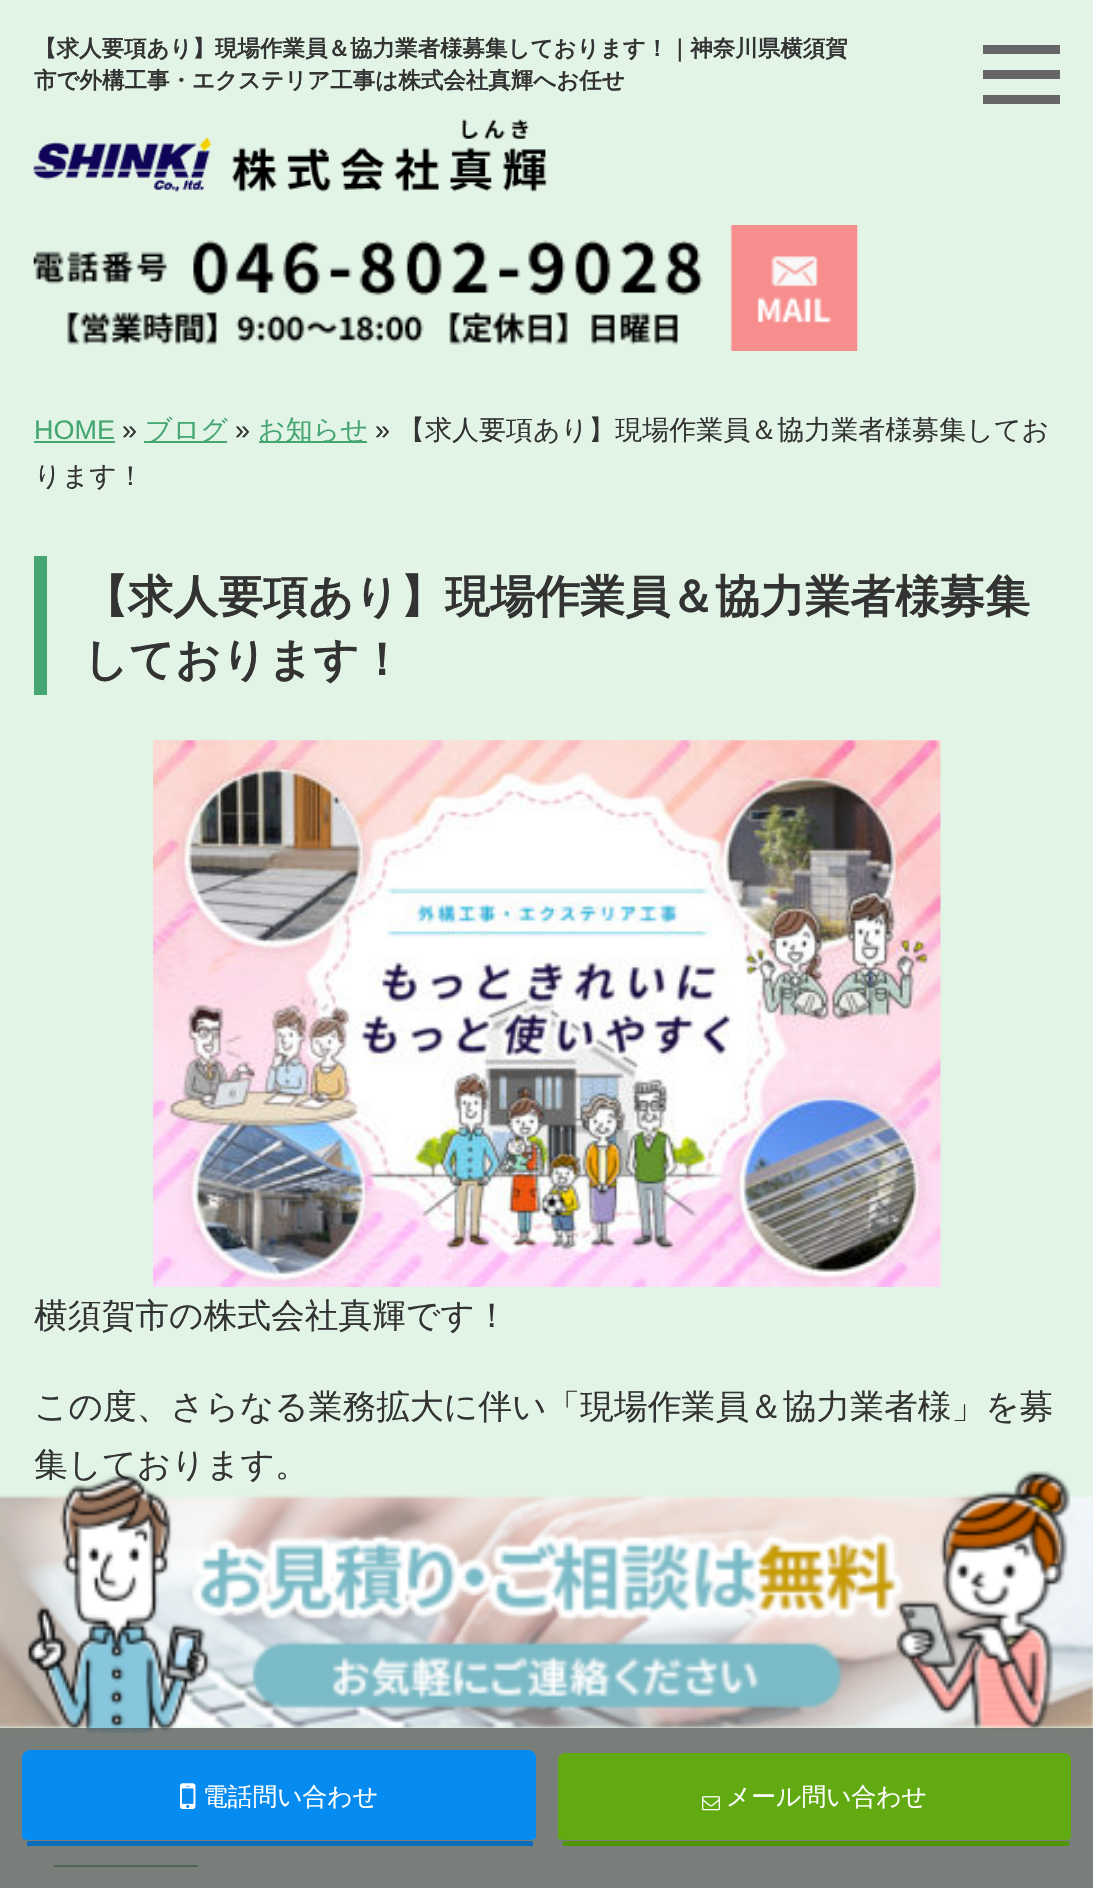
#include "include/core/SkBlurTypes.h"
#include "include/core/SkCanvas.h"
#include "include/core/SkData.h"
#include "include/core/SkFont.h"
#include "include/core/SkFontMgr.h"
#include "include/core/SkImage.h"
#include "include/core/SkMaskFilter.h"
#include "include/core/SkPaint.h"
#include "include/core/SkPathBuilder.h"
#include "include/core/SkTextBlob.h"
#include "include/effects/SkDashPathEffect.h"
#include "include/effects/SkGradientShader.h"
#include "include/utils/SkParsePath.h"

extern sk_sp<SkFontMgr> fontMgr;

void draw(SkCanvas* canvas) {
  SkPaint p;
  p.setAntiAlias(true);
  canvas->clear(SkColorSetRGB(226, 244, 230));
  p.setColor(SkColorSetRGB(102, 102, 102));
  canvas->drawRect(SkRect::MakeLTRB(983, 45, 1060, 54), p);
  canvas->drawRect(SkRect::MakeLTRB(983, 70, 1060, 79), p);
  canvas->drawRect(SkRect::MakeLTRB(983, 95, 1060, 104), p);
  canvas->drawImageRect(SkImages::DeferredFromEncodedData(SkData::MakeFromFileName("images/1.png")), SkRect::MakeLTRB(33, 119, 547, 192), SkSamplingOptions());
  canvas->drawImageRect(SkImages::DeferredFromEncodedData(SkData::MakeFromFileName("images/2.png")), SkRect::MakeLTRB(33, 225, 858, 351), SkSamplingOptions());
  p.setColor(SkColorSetRGB(70, 166, 113));
  canvas->drawRect(SkRect::MakeLTRB(34, 441, 115, 443), p);
  canvas->drawRect(SkRect::MakeLTRB(144, 441, 227, 443), p);
  canvas->drawRect(SkRect::MakeLTRB(259, 441, 367, 443), p);
  canvas->drawRect(SkRect::MakeLTRB(34, 556, 47, 695), p);
  canvas->drawImageRect(SkImages::DeferredFromEncodedData(SkData::MakeFromFileName("images/3.png")), SkRect::MakeLTRB(153, 740, 941, 1287), SkSamplingOptions());
  canvas->drawRect(SkRect::MakeLTRB(54, 1865, 198, 1867), p);
  SkFont font1(fontMgr->matchFamilyStyle("WenQuanYi Zen Hei", SkFontStyle::Bold()), 22.5f);
  font1.setSubpixel(true);
  p.setColor(SkColorSetRGB(51, 51, 51));
  canvas->drawString("【求人要項あり】現場作業員＆協力業者様募集しております！｜神奈川県横須賀", 34, 56, font1, p);
  canvas->drawString("市で外構工事・エクステリア工事は株式会社真輝へお任せ", 34, 88, font1, p);
  SkFont font2(fontMgr->matchFamilyStyle("Liberation Sans", SkFontStyle::Normal()), 27);
  font2.setSubpixel(true);
  p.setColor(SkColorSetRGB(70, 166, 113));
  canvas->drawString("HOME", 34, 439, font2, p);
  p.setColor(SkColorSetRGB(51, 51, 51));
  canvas->drawString("»", 122, 439, font2, p);
  SkFont font3(fontMgr->matchFamilyStyle("WenQuanYi Zen Hei", SkFontStyle(500, SkFontStyle::kNormal_Width, SkFontStyle::kUpright_Slant)), 27);
  font3.setSubpixel(true);
  p.setColor(SkColorSetRGB(70, 166, 113));
  canvas->drawString("ブログ", 145, 439, font3, p);
  p.setColor(SkColorSetRGB(51, 51, 51));
  canvas->drawString("»", 235, 439, font2, p);
  p.setColor(SkColorSetRGB(70, 166, 113));
  canvas->drawString("お知らせ", 258, 439, font3, p);
  p.setColor(SkColorSetRGB(51, 51, 51));
  canvas->drawString("»", 375, 439, font2, p);
  canvas->drawString("【求人要項あり】現場作業員＆協力業者様募集してお", 398, 439, font3, p);
  canvas->drawString("ります！", 34, 485, font3, p);
  SkFont font4(fontMgr->matchFamilyStyle("WenQuanYi Zen Hei", SkFontStyle::Bold()), 45);
  font4.setSubpixel(true);
  canvas->drawString("【求人要項あり】現場作業員＆協力業者様募集", 83, 612, font4, p);
  canvas->drawString("しております！", 83, 675, font4, p);
  SkFont font5(fontMgr->matchFamilyStyle("WenQuanYi Zen Hei", SkFontStyle(500, SkFontStyle::kNormal_Width, SkFontStyle::kUpright_Slant)), 33.75f);
  font5.setSubpixel(true);
  canvas->drawString("横須賀市の株式会社真輝です！", 34, 1327, font5, p);
  canvas->drawString("この度、さらなる業務拡大に伴い「現場作業員＆協力業者様」を募", 34, 1418, font5, p);
  canvas->drawString("集しております。", 34, 1476, font5, p);
  canvas->drawImageRect(SkImages::DeferredFromEncodedData(SkData::MakeFromFileName("images/4.png")), SkRect::MakeLTRB(0, 1471, 1093, 1733), SkSamplingOptions());
  p.setColor(SkColorSetARGB(179, 76, 76, 76));
  canvas->drawRect(SkRect::MakeLTRB(0, 1728, 1093, 1888), p);
  p.setColor(SkColorSetRGB(6, 139, 241));
  canvas->drawPath(SkPathBuilder().moveTo(29, 1750).lineTo(529, 1750).cubicTo(532, 1750, 536, 1754, 536, 1757).lineTo(536, 1838).cubicTo(536, 1839, 532, 1840, 529, 1840).lineTo(29, 1840).cubicTo(26, 1840, 22, 1839, 22, 1838).lineTo(22, 1757).cubicTo(22, 1754, 26, 1750, 29, 1750).close().detach(), p);
  p.setColor(SkColorSetRGB(11, 108, 186));
  canvas->drawRect(SkRect::MakeLTRB(27, 1841, 533, 1846), p);
  canvas->drawImageRect(SkImages::DeferredFromEncodedData(SkData::MakeFromFileName("images/5.png")), SkRect::MakeLTRB(180, 1783, 196, 1809), SkSamplingOptions());
  SkFont font6(fontMgr->matchFamilyStyle("WenQuanYi Zen Hei", SkFontStyle(500, SkFontStyle::kNormal_Width, SkFontStyle::kUpright_Slant)), 24.75f);
  font6.setSubpixel(true);
  p.setColor(SK_ColorWHITE);
  canvas->drawString("電話問い合わせ", 203, 1805, font6, p);
  p.setColor(SkColorSetRGB(97, 170, 18));
  canvas->drawPath(SkPathBuilder().moveTo(565, 1753).lineTo(1064, 1753).cubicTo(1068, 1753, 1071, 1756, 1071, 1760).lineTo(1071, 1838).cubicTo(1071, 1839, 1068, 1840, 1064, 1840).lineTo(565, 1840).cubicTo(561, 1840, 558, 1839, 558, 1838).lineTo(558, 1760).cubicTo(558, 1756, 561, 1753, 565, 1753).close().detach(), p);
  p.setColor(SkColorSetRGB(80, 148, 7));
  canvas->drawRect(SkRect::MakeLTRB(563, 1841, 1069, 1846), p);
  canvas->drawImageRect(SkImages::DeferredFromEncodedData(SkData::MakeFromFileName("images/6.png")), SkRect::MakeLTRB(702, 1796, 720, 1811), SkSamplingOptions());
  p.setColor(SK_ColorWHITE);
  canvas->drawString("メール問い合わせ", 726, 1805, font6, p);
}
